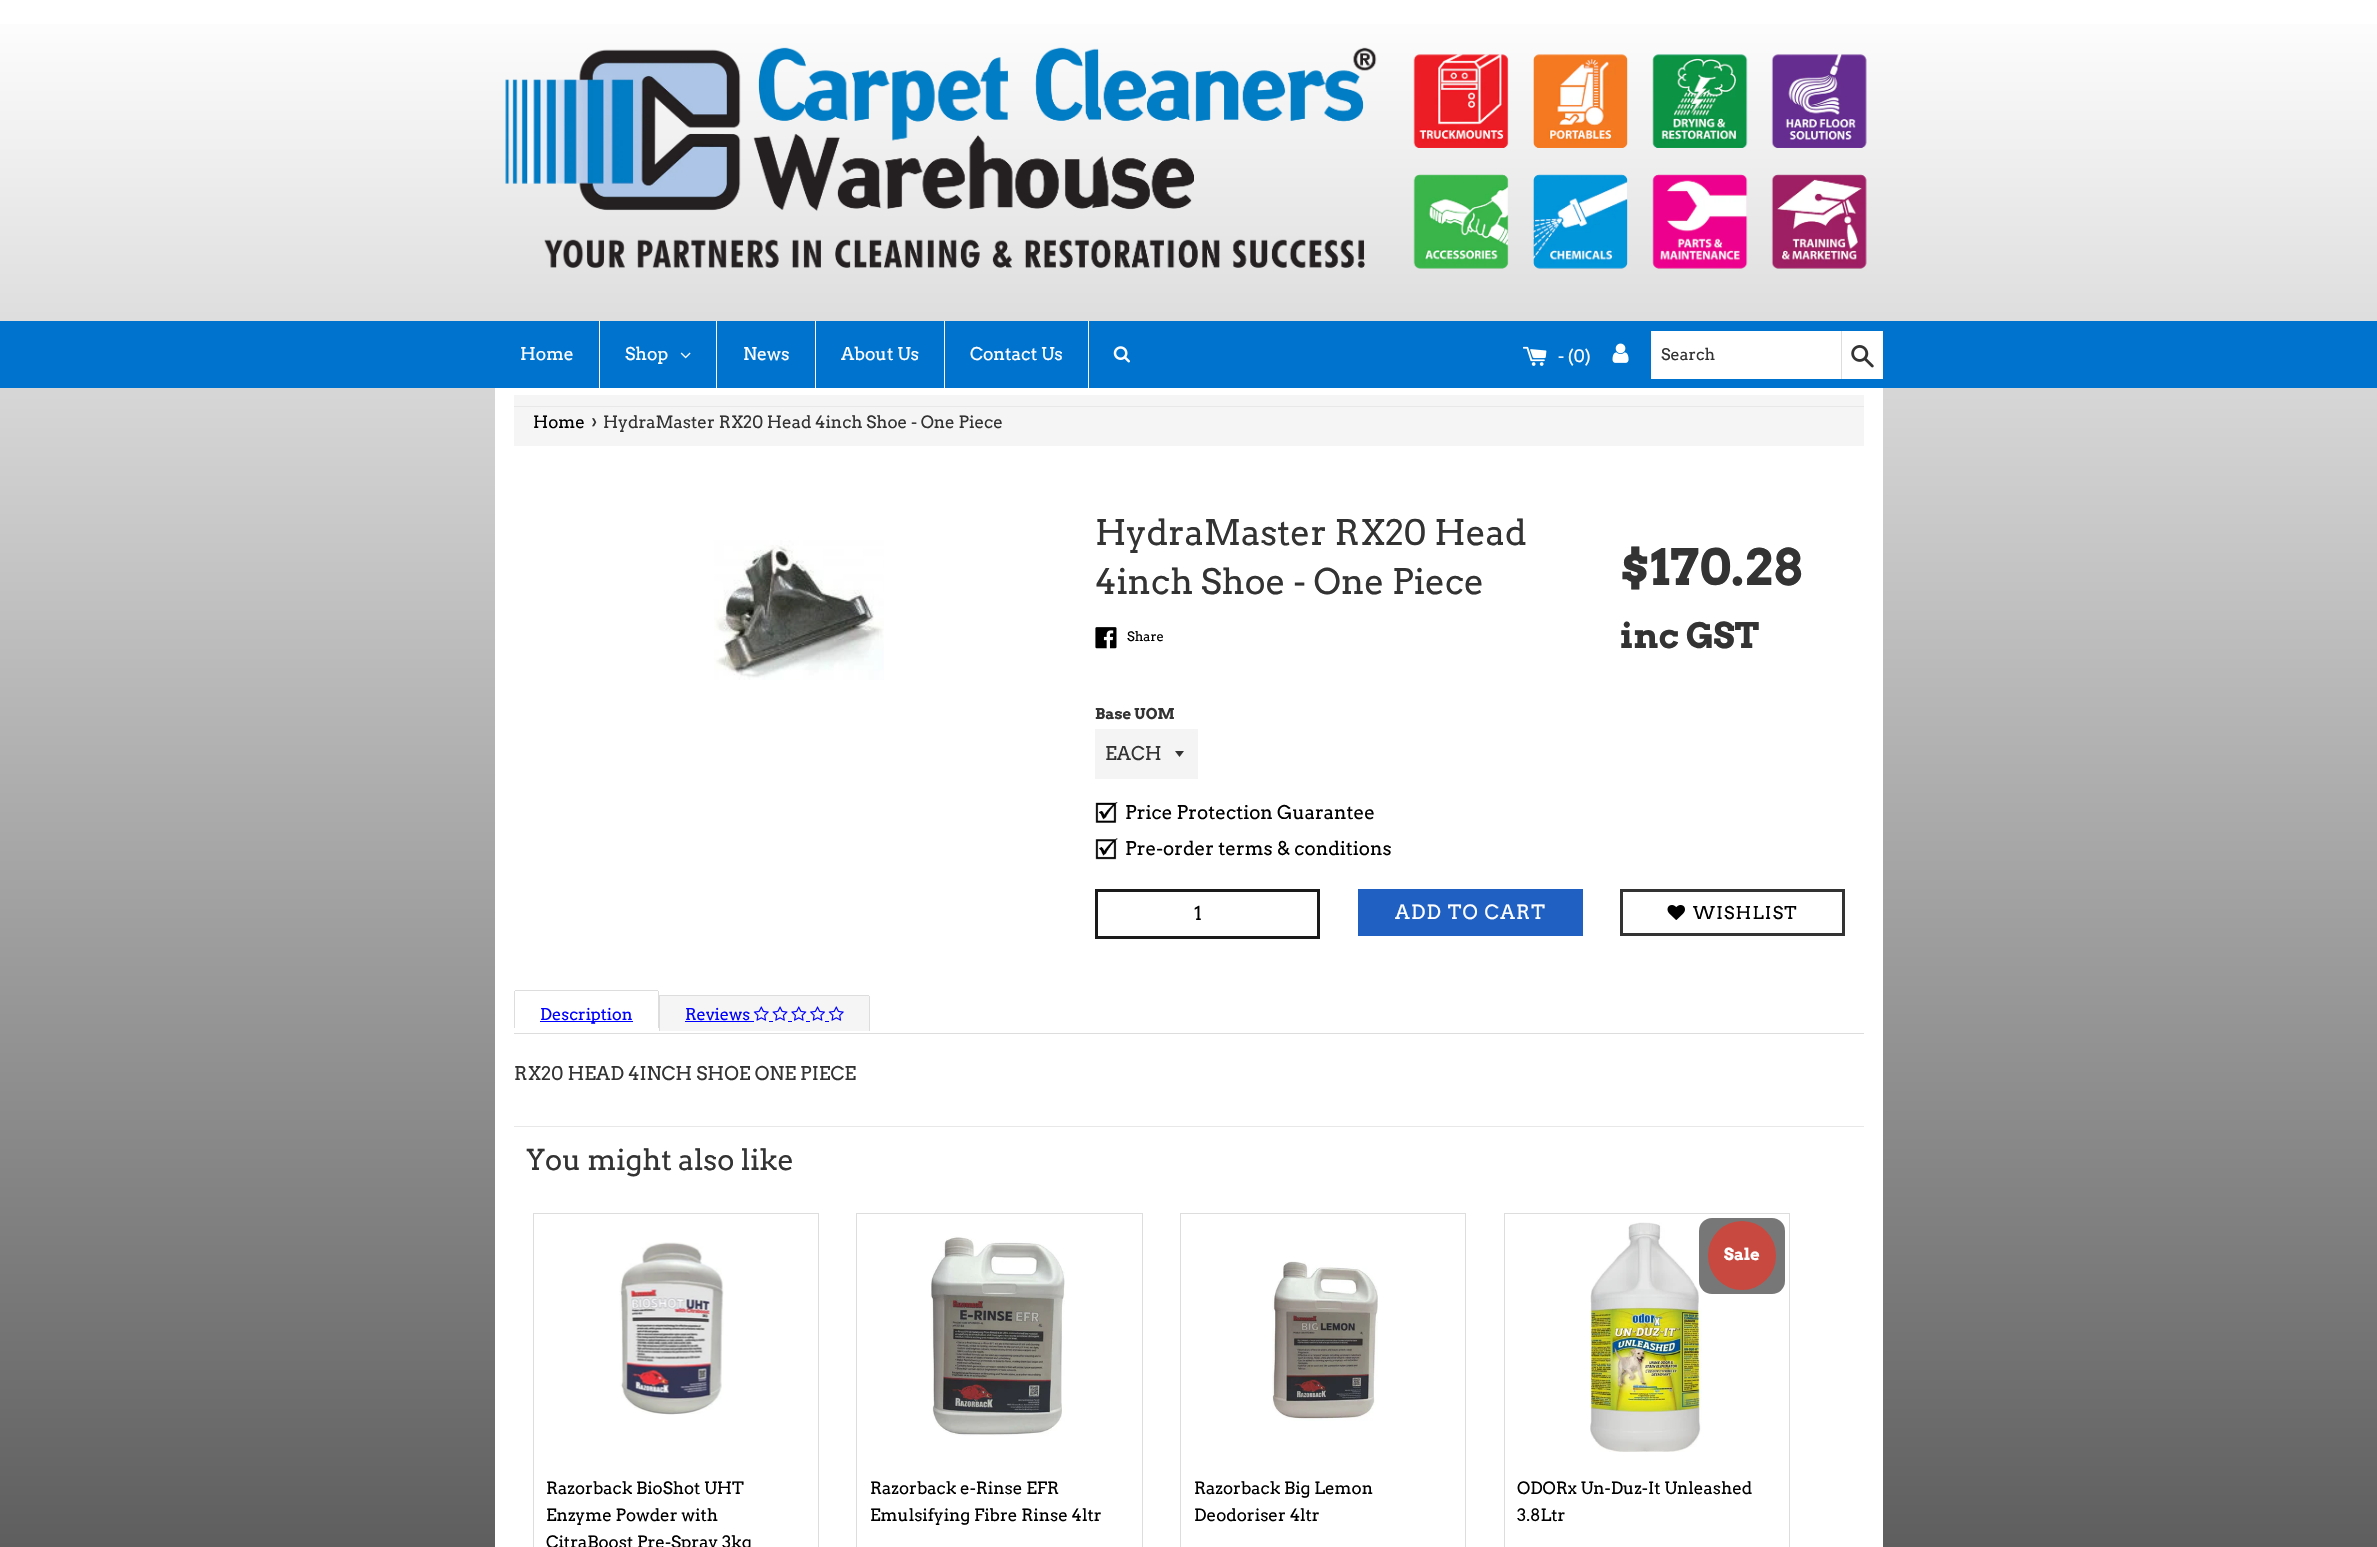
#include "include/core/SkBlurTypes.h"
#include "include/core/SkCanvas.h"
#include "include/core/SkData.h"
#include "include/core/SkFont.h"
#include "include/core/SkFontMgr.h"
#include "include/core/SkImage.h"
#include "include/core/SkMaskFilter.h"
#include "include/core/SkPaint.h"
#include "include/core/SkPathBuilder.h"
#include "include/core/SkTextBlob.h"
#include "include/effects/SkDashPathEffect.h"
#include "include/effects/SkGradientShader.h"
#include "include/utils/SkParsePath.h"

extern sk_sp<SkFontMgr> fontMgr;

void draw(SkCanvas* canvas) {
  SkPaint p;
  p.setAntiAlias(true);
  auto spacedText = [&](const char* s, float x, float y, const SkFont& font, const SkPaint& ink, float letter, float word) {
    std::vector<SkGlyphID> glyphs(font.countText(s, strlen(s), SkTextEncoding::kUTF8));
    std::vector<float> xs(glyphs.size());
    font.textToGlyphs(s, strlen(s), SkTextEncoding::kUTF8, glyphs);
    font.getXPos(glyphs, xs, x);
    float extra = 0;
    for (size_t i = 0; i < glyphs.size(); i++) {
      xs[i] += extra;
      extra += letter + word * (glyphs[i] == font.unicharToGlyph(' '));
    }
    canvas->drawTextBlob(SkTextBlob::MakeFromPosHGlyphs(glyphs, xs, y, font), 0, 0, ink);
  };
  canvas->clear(SK_ColorWHITE);
  {
    const SkColor colors[] = {SkColorSetRGB(94, 94, 94), SK_ColorWHITE};
    const float stops[] = {0, 1};
    const SkPoint ends[] = {{1189, 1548}, {1189, 0}};
    p.setShader(SkGradientShader::MakeLinear(ends, colors, stops, 2, SkTileMode::kClamp));
    p.setAlpha(255);
  }
  canvas->drawRect(SkRect::MakeLTRB(0, 24, 2377, 1547), p);
  canvas->drawImageRect(SkImages::DeferredFromEncodedData(SkData::MakeFromFileName("images/1.png")), SkRect::MakeLTRB(505, 47, 1867, 269), SkSamplingOptions());
  p.setShader(nullptr);
  p.setColor(SkColorSetRGB(0, 115, 206));
  canvas->drawRect(SkRect::MakeLTRB(0, 321, 2377, 388), p);
  p.setColor(SK_ColorWHITE);
  canvas->drawRect(SkRect::MakeLTRB(599, 321, 600, 388), p);
  canvas->drawImageRect(SkImages::DeferredFromEncodedData(SkData::MakeFromFileName("images/2.png")), SkRect::MakeLTRB(680, 352, 691, 359), SkSamplingOptions());
  canvas->drawRect(SkRect::MakeLTRB(716, 321, 717, 388), p);
  canvas->drawRect(SkRect::MakeLTRB(815, 321, 816, 388), p);
  canvas->drawRect(SkRect::MakeLTRB(944, 321, 945, 388), p);
  canvas->drawRect(SkRect::MakeLTRB(1088, 321, 1089, 388), p);
  canvas->drawImageRect(SkImages::DeferredFromEncodedData(SkData::MakeFromFileName("images/3.png")), SkRect::MakeLTRB(1113, 346, 1130, 363), SkSamplingOptions());
  canvas->drawImageRect(SkImages::DeferredFromEncodedData(SkData::MakeFromFileName("images/4.png")), SkRect::MakeLTRB(1523, 346, 1547, 366), SkSamplingOptions());
  canvas->drawImageRect(SkImages::DeferredFromEncodedData(SkData::MakeFromFileName("images/5.png")), SkRect::MakeLTRB(1612, 343, 1629, 363), SkSamplingOptions());
  canvas->drawRect(SkRect::MakeLTRB(1651, 331, 1883, 379), p);
  p.setColor(SkColorSetRGB(221, 221, 221));
  canvas->drawRect(SkRect::MakeLTRB(1841, 331, 1842, 379), p);
  canvas->drawImageRect(SkImages::DeferredFromEncodedData(SkData::MakeFromFileName("images/6.png")), SkRect::MakeLTRB(1851, 345, 1874, 368), SkSamplingOptions());
  p.setColor(SK_ColorWHITE);
  canvas->drawRect(SkRect::MakeLTRB(495, 388, 1883, 1547), p);
  p.setColor(SkColorSetRGB(245, 245, 245));
  canvas->drawRect(SkRect::MakeLTRB(514, 395, 1864, 446), p);
  p.setColor(SkColorSetRGB(232, 232, 232));
  canvas->drawRect(SkRect::MakeLTRB(514, 406, 1864, 407), p);
  canvas->drawImageRect(SkImages::DeferredFromEncodedData(SkData::MakeFromFileName("images/7.png")), SkRect::MakeLTRB(714, 540, 884, 680), SkSamplingOptions());
  canvas->drawImageRect(SkImages::DeferredFromEncodedData(SkData::MakeFromFileName("images/8.png")), SkRect::MakeLTRB(1095, 627, 1117, 649), SkSamplingOptions());
  p.setColor(SkColorSetRGB(244, 244, 244));
  canvas->drawRect(SkRect::MakeLTRB(1095, 729, 1198, 779), p);
  p.setColor(SkColorSetRGB(51, 51, 51));
  canvas->drawPath(SkPathBuilder().moveTo(1175, 751).lineTo(1179.5f, 757).lineTo(1184, 751).close().detach(), p);
  canvas->drawImageRect(SkImages::DeferredFromEncodedData(SkData::MakeFromFileName("images/9.png")), SkRect::MakeLTRB(1095, 802, 1118, 823), SkSamplingOptions());
  canvas->drawImageRect(SkImages::DeferredFromEncodedData(SkData::MakeFromFileName("images/10.png")), SkRect::MakeLTRB(1095, 838, 1118, 860), SkSamplingOptions());
  p.setStyle(SkPaint::kStroke_Style);
  p.setStrokeWidth(3);
  p.setColor(SkColorSetRGB(26, 26, 26));
  canvas->drawRect(SkRect::MakeLTRB(1096.5f, 890.5f, 1318.5f, 937.5f), p);
  p.setStyle(SkPaint::kFill_Style);
  p.setColor(SkColorSetRGB(31, 96, 194));
  canvas->drawRect(SkRect::MakeLTRB(1358, 889, 1583, 936), p);
  p.setStyle(SkPaint::kStroke_Style);
  p.setColor(SkColorSetRGB(51, 51, 51));
  canvas->drawRect(SkRect::MakeLTRB(1621.5f, 890.5f, 1843.5f, 934.5f), p);
  canvas->drawImageRect(SkImages::DeferredFromEncodedData(SkData::MakeFromFileName("images/11.png")), SkRect::MakeLTRB(1667, 905, 1685, 920), SkSamplingOptions());
  p.setStyle(SkPaint::kFill_Style);
  p.setColor(SkColorSetRGB(221, 221, 221));
  canvas->drawRect(SkRect::MakeLTRB(514, 1033, 1864, 1034), p);
  canvas->drawRect(SkRect::MakeLTRB(515, 990, 658, 991), p);
  canvas->drawRect(SkRect::MakeLTRB(658, 991, 659, 1028), p);
  canvas->drawRect(SkRect::MakeLTRB(514, 991, 515, 1028), p);
  p.setColor(SkColorSetRGB(0, 0, 255));
  canvas->drawRect(SkRect::MakeLTRB(540, 1021, 633, 1022), p);
  p.setColor(SkColorSetRGB(245, 245, 245));
  canvas->drawPath(SkPathBuilder().moveTo(659, 995).lineTo(867.5f, 995).cubicTo(869, 995, 870, 996, 870, 997.5f).lineTo(870, 1031).lineTo(659, 1031).close().detach(), p);
  p.setColor(SkColorSetRGB(221, 221, 221));
  canvas->drawRect(SkRect::MakeLTRB(659, 995, 869, 996), p);
  canvas->drawRect(SkRect::MakeLTRB(869, 996, 870, 1031), p);
  canvas->drawRect(SkRect::MakeLTRB(659, 995, 660, 1031), p);
  p.setColor(SkColorSetRGB(0, 0, 255));
  canvas->drawRect(SkRect::MakeLTRB(685, 1021, 754, 1022), p);
  canvas->drawImageRect(SkImages::DeferredFromEncodedData(SkData::MakeFromFileName("images/12.png")), SkRect::MakeLTRB(753, 1006, 769, 1021), SkSamplingOptions());
  canvas->drawImageRect(SkImages::DeferredFromEncodedData(SkData::MakeFromFileName("images/13.png")), SkRect::MakeLTRB(772, 1006, 788, 1021), SkSamplingOptions());
  canvas->drawImageRect(SkImages::DeferredFromEncodedData(SkData::MakeFromFileName("images/14.png")), SkRect::MakeLTRB(791, 1006, 807, 1021), SkSamplingOptions());
  canvas->drawImageRect(SkImages::DeferredFromEncodedData(SkData::MakeFromFileName("images/15.png")), SkRect::MakeLTRB(810, 1006, 825, 1021), SkSamplingOptions());
  canvas->drawImageRect(SkImages::DeferredFromEncodedData(SkData::MakeFromFileName("images/12.png")), SkRect::MakeLTRB(828, 1006, 844, 1021), SkSamplingOptions());
  canvas->drawRect(SkRect::MakeLTRB(769, 1021, 773, 1022), p);
  canvas->drawRect(SkRect::MakeLTRB(788, 1021, 792, 1022), p);
  canvas->drawRect(SkRect::MakeLTRB(806, 1021, 810, 1022), p);
  canvas->drawRect(SkRect::MakeLTRB(825, 1021, 829, 1022), p);
  p.setColor(SkColorSetRGB(232, 232, 232));
  canvas->drawRect(SkRect::MakeLTRB(514, 1126, 1864, 1127), p);
  p.setStyle(SkPaint::kStroke_Style);
  p.setStrokeWidth(1);
  p.setColor(SkColorSetRGB(221, 221, 221));
  canvas->drawRect(SkRect::MakeLTRB(533.5f, 1213.5f, 818.5f, 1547.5f), p);
  canvas->drawImageRect(SkImages::DeferredFromEncodedData(SkData::MakeFromFileName("images/16.png")), SkRect::MakeLTRB(619, 1242, 724, 1415), SkSamplingOptions());
  canvas->drawRect(SkRect::MakeLTRB(856.5f, 1213.5f, 1142.5f, 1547.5f), p);
  canvas->drawImageRect(SkImages::DeferredFromEncodedData(SkData::MakeFromFileName("images/17.png")), SkRect::MakeLTRB(930, 1236, 1065, 1436), SkSamplingOptions());
  canvas->drawRect(SkRect::MakeLTRB(1180.5f, 1213.5f, 1465.5f, 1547.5f), p);
  canvas->drawImageRect(SkImages::DeferredFromEncodedData(SkData::MakeFromFileName("images/18.png")), SkRect::MakeLTRB(1272, 1261, 1378, 1421), SkSamplingOptions());
  canvas->drawRect(SkRect::MakeLTRB(1504.5f, 1213.5f, 1789.5f, 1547.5f), p);
  canvas->drawImageRect(SkImages::DeferredFromEncodedData(SkData::MakeFromFileName("images/19.png")), SkRect::MakeLTRB(1590, 1222, 1702, 1452), SkSamplingOptions());
  p.setStyle(SkPaint::kFill_Style);
  p.setColor(SkColorSetRGB(119, 119, 119));
  canvas->drawRoundRect(SkRect::MakeLTRB(1699, 1218, 1785, 1294), 13, 13, p);
  p.setColor(SkColorSetRGB(200, 73, 63));
  canvas->drawRoundRect(SkRect::MakeLTRB(1708, 1221, 1776, 1290), 34, 34, p);
  SkFont font1(fontMgr->matchFamilyStyle("Arvo", SkFontStyle::Normal()), 17.5f);
  font1.setSubpixel(true);
  p.setColor(SK_ColorWHITE);
  canvas->drawString("Home", 520, 360, font1, p);
  canvas->drawString("Shop", 625, 360, font1, p);
  canvas->drawString("News", 743, 360, font1, p);
  canvas->drawString("About Us", 841, 360, font1, p);
  canvas->drawString("Contact Us", 970, 360, font1, p);
  SkFont font2(fontMgr->matchFamilyStyle("Arvo", SkFontStyle::Normal()), 16.9f);
  font2.setSubpixel(true);
  canvas->drawString("- (0)", 1558, 362, font2, p);
  SkFont font3(fontMgr->matchFamilyStyle("Arvo", SkFontStyle::Normal()), 16);
  font3.setSubpixel(true);
  p.setColor(SkColorSetRGB(51, 51, 51));
  canvas->drawString("Search", 1661, 360, font3, p);
  p.setColor(SK_ColorBLACK);
  canvas->drawString("Home", 533, 428, font2, p);
  SkFont font4(fontMgr->matchFamilyStyle("Arvo", SkFontStyle::Normal()), 21);
  font4.setSubpixel(true);
  p.setColor(SkColorSetRGB(51, 51, 51));
  canvas->drawString("›", 591, 428, font4, p);
  canvas->drawString("HydraMaster RX20 Head 4inch Shoe - One Piece", 603, 428, font2, p);
  SkFont font5(fontMgr->matchFamilyStyle("Arvo", SkFontStyle::Normal()), 35);
  font5.setSubpixel(true);
  canvas->drawString("HydraMaster RX20 Head", 1095, 545, font5, p);
  canvas->drawString("4inch Shoe - One Piece", 1095, 594, font5, p);
  SkFont font6(fontMgr->matchFamilyStyle("Arvo", SkFontStyle::Normal()), 13);
  font6.setSubpixel(true);
  p.setColor(SK_ColorBLACK);
  canvas->drawString("Share", 1127, 641, font6, p);
  SkFont font7(fontMgr->matchFamilyStyle("Arvo", SkFontStyle::Bold()), 50);
  font7.setSubpixel(true);
  p.setColor(SkColorSetRGB(51, 51, 51));
  canvas->drawString("$170.28", 1620, 585, font7, p);
  SkFont font8(fontMgr->matchFamilyStyle("Arvo", SkFontStyle::Bold()), 35);
  font8.setSubpixel(true);
  canvas->drawString("inc GST", 1620, 648, font8, p);
  SkFont font9(fontMgr->matchFamilyStyle("Arvo", SkFontStyle::Bold()), 15);
  font9.setSubpixel(true);
  canvas->drawString("Base UOM", 1095, 719, font9, p);
  SkFont font10(fontMgr->matchFamilyStyle("Arvo", SkFontStyle::Normal()), 18.75f);
  font10.setSubpixel(true);
  canvas->drawString("EACH", 1105, 760, font10, p);
  p.setColor(SK_ColorBLACK);
  canvas->drawString("Price Protection Guarantee", 1125, 819, font10, p);
  canvas->drawString("Pre-order terms & conditions", 1125, 855, font10, p);
  canvas->drawString("1", 1194, 920, font10, p);
  SkFont font11(fontMgr->matchFamilyStyle("Arvo", SkFontStyle::Normal()), 19.5f);
  font11.setSubpixel(true);
  p.setColor(SK_ColorWHITE);
  spacedText("ADD TO CART", 1395, 919, font11, p, 1.25f, 0);
  p.setColor(SK_ColorBLACK);
  spacedText("WISHLIST", 1693, 919, font1, p, 1.25f, 0);
  SkFont font12(fontMgr->matchFamilyStyle("Arvo", SkFontStyle::Normal()), 16.25f);
  font12.setSubpixel(true);
  p.setColor(SkColorSetRGB(0, 0, 255));
  canvas->drawString("Description", 540, 1020, font12, p);
  canvas->drawString("Reviews", 685, 1020, font12, p);
  p.setColor(SkColorSetRGB(51, 51, 51));
  canvas->drawString("RX20 HEAD 4INCH SHOE ONE PIECE", 514, 1080, font10, p);
  SkFont font13(fontMgr->matchFamilyStyle("Arvo", SkFontStyle::Normal()), 28.75f);
  font13.setSubpixel(true);
  canvas->drawString("You might also like", 526, 1170, font13, p);
  p.setColor(SK_ColorBLACK);
  canvas->drawString("Razorback BioShot UHT", 546, 1494, font2, p);
  canvas->drawString("Enzyme Powder with", 546, 1521, font2, p);
  canvas->drawString("CitraBoost Pre-Spray 3kg", 546, 1548, font2, p);
  canvas->drawString("Razorback e-Rinse EFR", 870, 1494, font2, p);
  canvas->drawString("Emulsifying Fibre Rinse 4ltr", 870, 1521, font2, p);
  canvas->drawString("Razorback Big Lemon", 1194, 1494, font2, p);
  canvas->drawString("Deodoriser 4ltr", 1194, 1521, font2, p);
  SkFont font14(fontMgr->matchFamilyStyle("Arvo", SkFontStyle::Bold()), 16.25f);
  font14.setSubpixel(true);
  p.setColor(SK_ColorWHITE);
  canvas->drawString("Sale", 1724, 1260, font14, p);
  p.setColor(SK_ColorBLACK);
  canvas->drawString("ODORx Un-Duz-It Unleashed", 1517, 1494, font2, p);
  canvas->drawString("3.8Ltr", 1517, 1521, font2, p);
}
